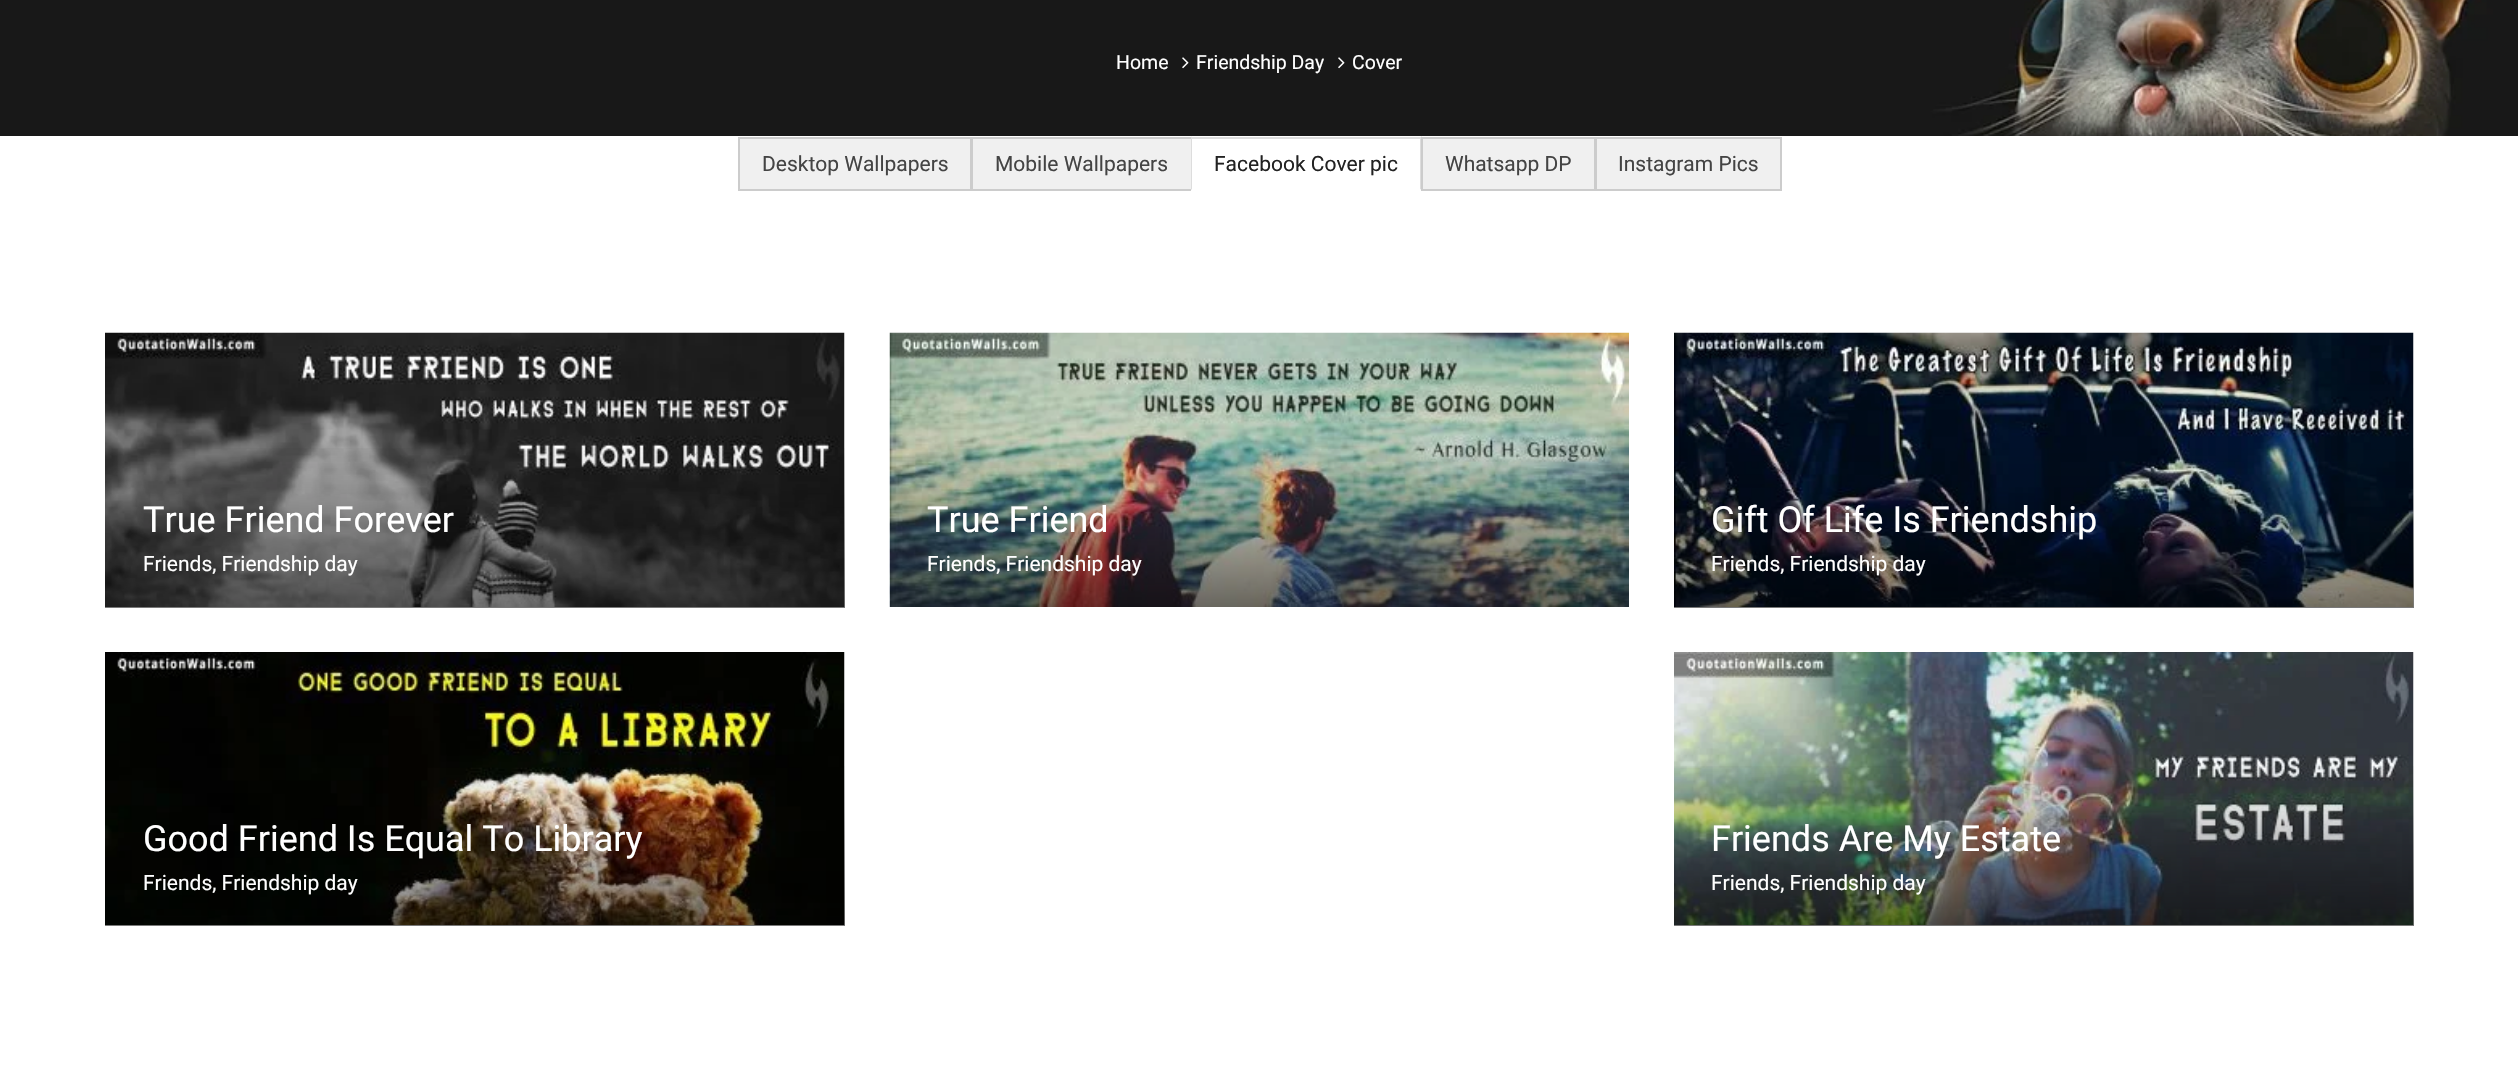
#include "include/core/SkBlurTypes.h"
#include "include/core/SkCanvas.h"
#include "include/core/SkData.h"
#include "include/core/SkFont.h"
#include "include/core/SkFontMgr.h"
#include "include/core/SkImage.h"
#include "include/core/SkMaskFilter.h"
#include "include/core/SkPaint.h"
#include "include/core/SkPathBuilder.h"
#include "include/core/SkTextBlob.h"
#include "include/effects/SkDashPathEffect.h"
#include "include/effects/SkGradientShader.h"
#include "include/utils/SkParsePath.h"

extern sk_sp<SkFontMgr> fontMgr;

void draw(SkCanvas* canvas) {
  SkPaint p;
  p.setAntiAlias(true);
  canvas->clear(SK_ColorWHITE);
  canvas->drawImageRect(SkImages::DeferredFromEncodedData(SkData::MakeFromFileName("images/1.png")), SkRect::MakeLTRB(0, 0, 2518, 136), SkSamplingOptions());
  canvas->drawImageRect(SkImages::DeferredFromEncodedData(SkData::MakeFromFileName("images/2.png")), SkRect::MakeLTRB(1182, 57, 1189, 69), SkSamplingOptions());
  canvas->drawImageRect(SkImages::DeferredFromEncodedData(SkData::MakeFromFileName("images/2.png")), SkRect::MakeLTRB(1338, 57, 1345, 69), SkSamplingOptions());
  p.setColor(SkColorSetRGB(240, 240, 240));
  canvas->drawRect(SkRect::MakeLTRB(739, 138, 971, 190), p);
  p.setStyle(SkPaint::kStroke_Style);
  p.setStrokeWidth(2);
  p.setColor(SkColorSetRGB(204, 204, 204));
  canvas->drawRect(SkRect::MakeLTRB(739, 138, 971, 190), p);
  p.setStyle(SkPaint::kFill_Style);
  p.setColor(SkColorSetRGB(240, 240, 240));
  canvas->drawRect(SkRect::MakeLTRB(972, 138, 1192, 190), p);
  p.setStyle(SkPaint::kStroke_Style);
  p.setColor(SkColorSetRGB(204, 204, 204));
  canvas->drawRect(SkRect::MakeLTRB(972, 138, 1192, 190), p);
  p.setStyle(SkPaint::kFill_Style);
  p.setColor(SK_ColorWHITE);
  canvas->drawRect(SkRect::MakeLTRB(1191, 139, 1193, 191), p);
  p.setColor(SkColorSetRGB(221, 221, 221));
  canvas->drawRect(SkRect::MakeLTRB(1191, 137, 1422, 139), p);
  canvas->drawPath(SkPathBuilder().moveTo(1422, 136).lineTo(1422, 190).lineTo(1420, 189).lineTo(1420, 138).close().detach(), p);
  canvas->drawPath(SkPathBuilder().moveTo(1191, 190).lineTo(1191, 136).lineTo(1192, 138).lineTo(1192, 189).close().detach(), p);
  p.setColor(SkColorSetRGB(240, 240, 240));
  canvas->drawRect(SkRect::MakeLTRB(1422, 138, 1595, 190), p);
  p.setStyle(SkPaint::kStroke_Style);
  p.setColor(SkColorSetRGB(204, 204, 204));
  canvas->drawRect(SkRect::MakeLTRB(1422, 138, 1595, 190), p);
  p.setStyle(SkPaint::kFill_Style);
  p.setColor(SkColorSetRGB(240, 240, 240));
  canvas->drawRect(SkRect::MakeLTRB(1596, 138, 1781, 190), p);
  p.setStyle(SkPaint::kStroke_Style);
  p.setColor(SkColorSetRGB(204, 204, 204));
  canvas->drawRect(SkRect::MakeLTRB(1596, 138, 1781, 190), p);
  canvas->drawImageRect(SkImages::DeferredFromEncodedData(SkData::MakeFromFileName("images/3.png")), SkRect::MakeLTRB(105, 332, 845, 607), SkSamplingOptions());
  p.setStyle(SkPaint::kFill_Style);
  {
    const SkColor colors[] = {SkColorSetARGB(0, 0, 0, 0), SkColorSetARGB(3, 0, 0, 0), SkColorSetARGB(28, 0, 0, 0), SkColorSetARGB(171, 0, 0, 0), SkColorSetARGB(194, 0, 0, 0), SkColorSetARGB(204, 0, 0, 0)};
    const float stops[] = {0, 0.01f, 0.19f, 0.79f, 0.92f, 1};
    const SkPoint ends[] = {{475, 440}, {475, 704}};
    p.setShader(SkGradientShader::MakeLinear(ends, colors, stops, 6, SkTileMode::kClamp));
    p.setAlpha(255);
  }
  canvas->drawRect(SkRect::MakeLTRB(105, 448, 845, 608), p);
  canvas->drawImageRect(SkImages::DeferredFromEncodedData(SkData::MakeFromFileName("images/4.png")), SkRect::MakeLTRB(889, 332, 1629, 607), SkSamplingOptions());
  canvas->drawImageRect(SkImages::DeferredFromEncodedData(SkData::MakeFromFileName("images/5.png")), SkRect::MakeLTRB(1674, 332, 2414, 607), SkSamplingOptions());
  {
    const SkColor colors[] = {SkColorSetARGB(0, 0, 0, 0), SkColorSetARGB(3, 0, 0, 0), SkColorSetARGB(28, 0, 0, 0), SkColorSetARGB(171, 0, 0, 0), SkColorSetARGB(194, 0, 0, 0), SkColorSetARGB(204, 0, 0, 0)};
    const float stops[] = {0, 0.01f, 0.19f, 0.79f, 0.92f, 1};
    const SkPoint ends[] = {{2044, 440}, {2044, 704}};
    p.setShader(SkGradientShader::MakeLinear(ends, colors, stops, 6, SkTileMode::kClamp));
    p.setAlpha(255);
  }
  canvas->drawRect(SkRect::MakeLTRB(1674, 448, 2414, 608), p);
  canvas->drawImageRect(SkImages::DeferredFromEncodedData(SkData::MakeFromFileName("images/6.png")), SkRect::MakeLTRB(105, 652, 845, 925), SkSamplingOptions());
  {
    const SkColor colors[] = {SkColorSetARGB(0, 0, 0, 0), SkColorSetARGB(3, 0, 0, 0), SkColorSetARGB(28, 0, 0, 0), SkColorSetARGB(171, 0, 0, 0), SkColorSetARGB(194, 0, 0, 0), SkColorSetARGB(204, 0, 0, 0)};
    const float stops[] = {0, 0.01f, 0.19f, 0.79f, 0.92f, 1};
    const SkPoint ends[] = {{475, 758}, {475, 1022}};
    p.setShader(SkGradientShader::MakeLinear(ends, colors, stops, 6, SkTileMode::kClamp));
    p.setAlpha(255);
  }
  canvas->drawRect(SkRect::MakeLTRB(105, 766, 845, 926), p);
  canvas->drawImageRect(SkImages::DeferredFromEncodedData(SkData::MakeFromFileName("images/7.png")), SkRect::MakeLTRB(1674, 652, 2414, 925), SkSamplingOptions());
  {
    const SkColor colors[] = {SkColorSetARGB(0, 0, 0, 0), SkColorSetARGB(3, 0, 0, 0), SkColorSetARGB(28, 0, 0, 0), SkColorSetARGB(171, 0, 0, 0), SkColorSetARGB(194, 0, 0, 0), SkColorSetARGB(204, 0, 0, 0)};
    const float stops[] = {0, 0.01f, 0.19f, 0.79f, 0.92f, 1};
    const SkPoint ends[] = {{2044, 758}, {2044, 1022}};
    p.setShader(SkGradientShader::MakeLinear(ends, colors, stops, 6, SkTileMode::kClamp));
    p.setAlpha(255);
  }
  canvas->drawRect(SkRect::MakeLTRB(1674, 766, 2414, 926), p);
  SkFont font1(fontMgr->matchFamilyStyle("Roboto", SkFontStyle::Normal()), 19.5f);
  font1.setSubpixel(true);
  p.setShader(nullptr);
  p.setColor(SK_ColorWHITE);
  canvas->drawString("Home", 1116, 69, font1, p);
  canvas->drawString("Friendship Day", 1196, 69, font1, p);
  canvas->drawString("Cover", 1352, 69, font1, p);
  SkFont font2(fontMgr->matchFamilyStyle("Roboto", SkFontStyle::Normal()), 21);
  font2.setSubpixel(true);
  p.setColor(SkColorSetRGB(68, 68, 68));
  canvas->drawString("Desktop Wallpapers", 762, 171, font2, p);
  canvas->drawString("Mobile Wallpapers", 995, 171, font2, p);
  p.setColor(SkColorSetRGB(34, 34, 34));
  canvas->drawString("Facebook Cover pic", 1214, 171, font2, p);
  p.setColor(SkColorSetRGB(68, 68, 68));
  canvas->drawString("Whatsapp DP", 1445, 171, font2, p);
  canvas->drawString("Instagram Pics", 1618, 171, font2, p);
  SkFont font3(fontMgr->matchFamilyStyle("Roboto", SkFontStyle::Normal()), 36);
  font3.setSubpixel(true);
  p.setColor(SK_ColorWHITE);
  canvas->drawString("True Friend Forever", 143, 532, font3, p);
  canvas->drawString("Friends, Friendship day", 143, 571, font2, p);
  canvas->drawString("True Friend", 927, 532, font3, p);
  canvas->drawString("Friends, Friendship day", 927, 571, font2, p);
  canvas->drawString("Gift Of Life Is Friendship", 1711, 532, font3, p);
  canvas->drawString("Friends, Friendship day", 1711, 571, font2, p);
  canvas->drawString("Good Friend Is Equal To Library", 143, 851, font3, p);
  canvas->drawString("Friends, Friendship day", 143, 890, font2, p);
  canvas->drawString("Friends Are My Estate", 1711, 851, font3, p);
  canvas->drawString("Friends, Friendship day", 1711, 890, font2, p);
}
